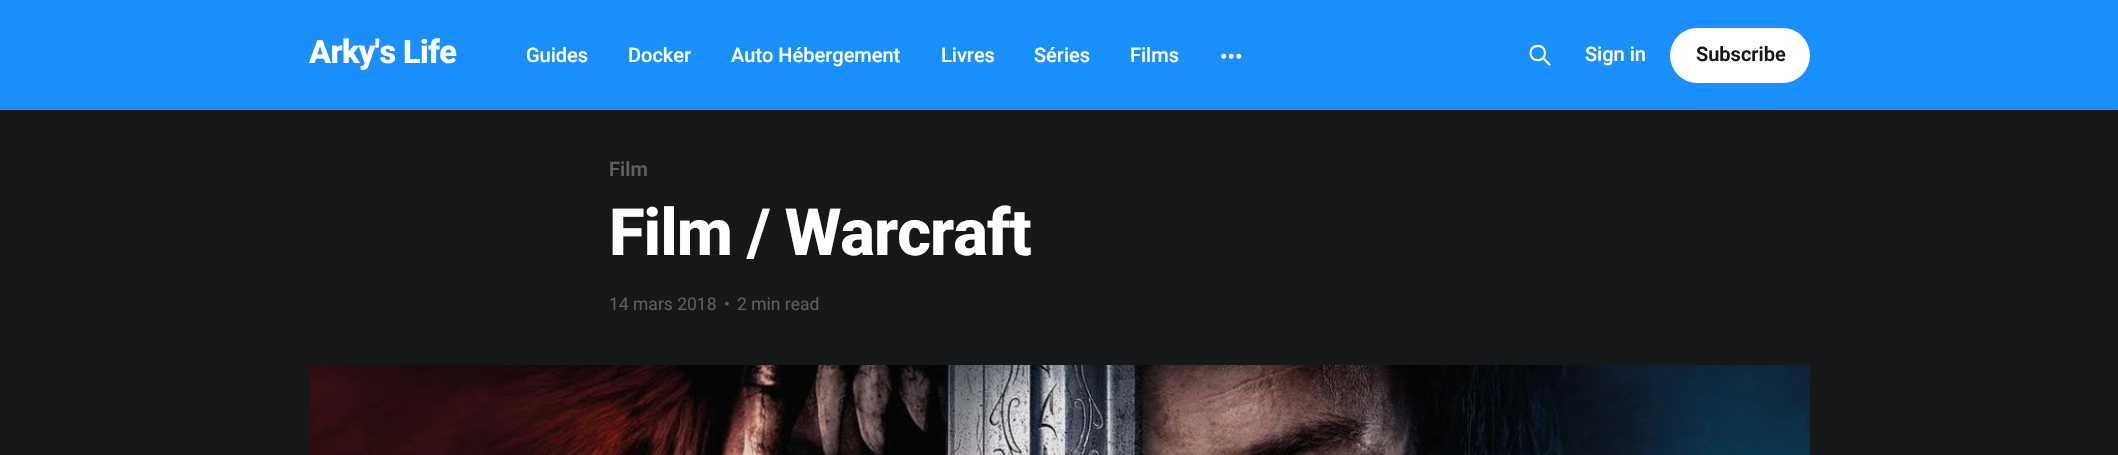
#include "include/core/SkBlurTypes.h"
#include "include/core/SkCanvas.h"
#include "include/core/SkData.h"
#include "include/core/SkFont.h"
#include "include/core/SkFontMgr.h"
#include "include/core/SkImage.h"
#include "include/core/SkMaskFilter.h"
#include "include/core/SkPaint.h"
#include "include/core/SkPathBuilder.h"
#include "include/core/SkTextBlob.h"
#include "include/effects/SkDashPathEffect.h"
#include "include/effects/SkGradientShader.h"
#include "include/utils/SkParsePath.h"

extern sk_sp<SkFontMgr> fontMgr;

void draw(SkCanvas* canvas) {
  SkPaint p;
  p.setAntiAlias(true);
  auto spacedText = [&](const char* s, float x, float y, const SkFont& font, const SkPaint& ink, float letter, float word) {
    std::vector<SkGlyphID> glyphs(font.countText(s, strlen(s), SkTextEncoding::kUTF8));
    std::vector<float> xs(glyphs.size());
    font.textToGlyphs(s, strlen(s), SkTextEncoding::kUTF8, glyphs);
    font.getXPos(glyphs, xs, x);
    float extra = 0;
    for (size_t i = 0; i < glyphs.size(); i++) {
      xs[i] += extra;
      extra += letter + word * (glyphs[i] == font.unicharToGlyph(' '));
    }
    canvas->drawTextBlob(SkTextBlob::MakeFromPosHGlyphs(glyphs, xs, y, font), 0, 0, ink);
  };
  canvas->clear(SkColorSetRGB(21, 23, 25));
  p.setColor(SkColorSetRGB(26, 144, 255));
  canvas->drawRect(SkRect::MakeLTRB(0, 0, 2118, 110), p);
  canvas->drawImageRect(SkImages::DeferredFromEncodedData(SkData::MakeFromFileName("images/1.png")), SkRect::MakeLTRB(1221, 53, 1242, 59), SkSamplingOptions());
  p.setStyle(SkPaint::kStroke_Style);
  p.setStrokeWidth(2.1f);
  p.setStrokeCap(SkPaint::kRound_Cap);
  p.setStrokeJoin(SkPaint::kRound_Join);
  p.setColor(SK_ColorWHITE);
  canvas->drawPath(SkPathBuilder().moveTo(1549.5f, 64.5f).lineTo(1543, 58).moveTo(1545, 53).cubicTo(1545, 62.5f, 1530.5f, 62.5f, 1530.5f, 53).cubicTo(1530.5f, 43.5f, 1545, 43.5f, 1545, 53).close().detach(), p);
  p.setStyle(SkPaint::kFill_Style);
  canvas->drawRoundRect(SkRect::MakeLTRB(1670, 28, 1810, 83), 27.5f, 27.5f, p);
  canvas->drawImageRect(SkImages::DeferredFromEncodedData(SkData::MakeFromFileName("images/2.png")), SkRect::MakeLTRB(310, 365, 1810, 455), SkSamplingOptions());
  SkFont font1(fontMgr->matchFamilyStyle("Roboto", SkFontStyle(800, SkFontStyle::kNormal_Width, SkFontStyle::kUpright_Slant)), 32.5f);
  font1.setSubpixel(true);
  spacedText("Arky's Life", 309, 63, font1, p, -0.6f, 0);
  SkFont font2(fontMgr->matchFamilyStyle("Roboto", SkFontStyle(500, SkFontStyle::kNormal_Width, SkFontStyle::kUpright_Slant)), 20);
  font2.setSubpixel(true);
  canvas->drawString("Guides", 526, 62, font2, p);
  canvas->drawString("Docker", 628, 62, font2, p);
  canvas->drawString("Auto Hébergement", 731, 62, font2, p);
  canvas->drawString("Livres", 941, 62, font2, p);
  canvas->drawString("Séries", 1034, 62, font2, p);
  canvas->drawString("Films", 1130, 62, font2, p);
  canvas->drawString("Sign in", 1585, 61, font2, p);
  SkFont font3(fontMgr->matchFamilyStyle("Roboto", SkFontStyle(600, SkFontStyle::kNormal_Width, SkFontStyle::kUpright_Slant)), 20);
  font3.setSubpixel(true);
  p.setColor(SkColorSetRGB(21, 23, 26));
  canvas->drawString("Subscribe", 1696, 61, font3, p);
  p.setColor(SkColorSetRGB(95, 95, 95));
  canvas->drawString("Film", 609, 176, font3, p);
  SkFont font4(fontMgr->matchFamilyStyle("Roboto", SkFontStyle(800, SkFontStyle::kNormal_Width, SkFontStyle::kUpright_Slant)), 65);
  font4.setSubpixel(true);
  p.setColor(SK_ColorWHITE);
  spacedText("Film / Warcraft", 609, 255, font4, p, -1, 0);
  SkFont font5(fontMgr->matchFamilyStyle("Roboto", SkFontStyle::Normal()), 17.5f);
  font5.setSubpixel(true);
  p.setColor(SkColorSetRGB(95, 95, 95));
  canvas->drawString("14 mars 2018", 609, 310, font5, p);
  canvas->drawString("•", 724, 310, font5, p);
  canvas->drawString("2 min read", 737, 310, font5, p);
}
